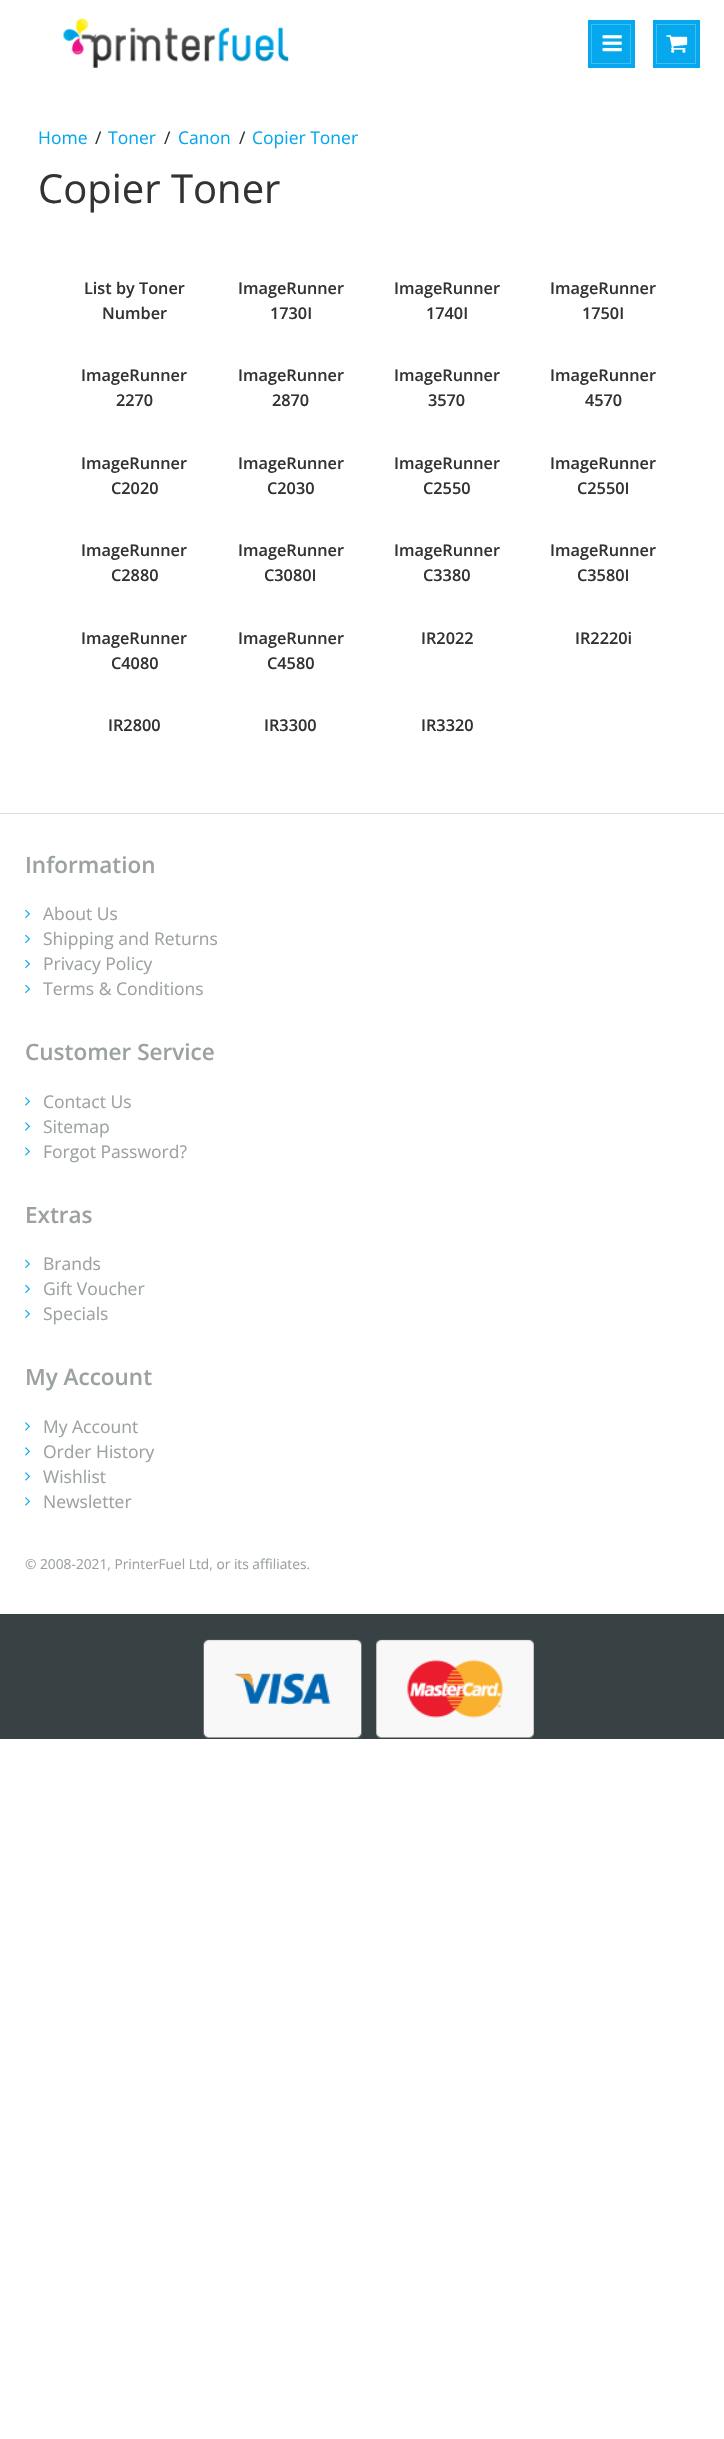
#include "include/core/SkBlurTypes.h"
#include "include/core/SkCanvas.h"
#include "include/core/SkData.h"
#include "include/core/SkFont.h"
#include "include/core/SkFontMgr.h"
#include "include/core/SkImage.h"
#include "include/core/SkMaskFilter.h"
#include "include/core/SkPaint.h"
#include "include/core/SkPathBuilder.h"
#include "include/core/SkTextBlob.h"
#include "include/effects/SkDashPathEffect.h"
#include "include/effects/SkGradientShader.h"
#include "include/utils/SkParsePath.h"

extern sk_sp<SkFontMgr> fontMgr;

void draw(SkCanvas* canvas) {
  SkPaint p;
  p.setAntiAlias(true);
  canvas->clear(SK_ColorWHITE);
  canvas->drawImageRect(SkImages::DeferredFromEncodedData(SkData::MakeFromFileName("images/1.png")), SkRect::MakeLTRB(63, 18, 289, 68), SkSamplingOptions());
  p.setColor(SkColorSetRGB(5, 167, 237));
  canvas->drawRect(SkRect::MakeLTRB(588, 20, 635, 68), p);
  p.setStyle(SkPaint::kStroke_Style);
  p.setStrokeWidth(1);
  p.setColor(SkColorSetRGB(68, 189, 242));
  canvas->drawRect(SkRect::MakeLTRB(591.5f, 24.5f, 630.5f, 63.5f), p);
  canvas->drawImageRect(SkImages::DeferredFromEncodedData(SkData::MakeFromFileName("images/2.png")), SkRect::MakeLTRB(602, 35, 622, 52), SkSamplingOptions());
  p.setStyle(SkPaint::kFill_Style);
  p.setColor(SkColorSetRGB(5, 167, 237));
  canvas->drawRect(SkRect::MakeLTRB(653, 20, 700, 68), p);
  p.setStyle(SkPaint::kStroke_Style);
  p.setColor(SkColorSetRGB(68, 189, 242));
  canvas->drawRect(SkRect::MakeLTRB(656.5f, 24.5f, 695.5f, 63.5f), p);
  canvas->drawImageRect(SkImages::DeferredFromEncodedData(SkData::MakeFromFileName("images/3.png")), SkRect::MakeLTRB(666, 35, 688, 53), SkSamplingOptions());
  p.setStyle(SkPaint::kFill_Style);
  p.setColor(SkColorSetRGB(221, 221, 221));
  canvas->drawRect(SkRect::MakeLTRB(0, 813, 724, 814), p);
  canvas->drawImageRect(SkImages::DeferredFromEncodedData(SkData::MakeFromFileName("images/4.png")), SkRect::MakeLTRB(25, 909, 30, 919), SkSamplingOptions());
  canvas->drawImageRect(SkImages::DeferredFromEncodedData(SkData::MakeFromFileName("images/4.png")), SkRect::MakeLTRB(25, 934, 30, 944), SkSamplingOptions());
  canvas->drawImageRect(SkImages::DeferredFromEncodedData(SkData::MakeFromFileName("images/4.png")), SkRect::MakeLTRB(25, 959, 30, 969), SkSamplingOptions());
  canvas->drawImageRect(SkImages::DeferredFromEncodedData(SkData::MakeFromFileName("images/4.png")), SkRect::MakeLTRB(25, 984, 30, 994), SkSamplingOptions());
  canvas->drawImageRect(SkImages::DeferredFromEncodedData(SkData::MakeFromFileName("images/5.png")), SkRect::MakeLTRB(25, 1097, 30, 1106), SkSamplingOptions());
  canvas->drawImageRect(SkImages::DeferredFromEncodedData(SkData::MakeFromFileName("images/5.png")), SkRect::MakeLTRB(25, 1122, 30, 1131), SkSamplingOptions());
  canvas->drawImageRect(SkImages::DeferredFromEncodedData(SkData::MakeFromFileName("images/5.png")), SkRect::MakeLTRB(25, 1147, 30, 1156), SkSamplingOptions());
  canvas->drawImageRect(SkImages::DeferredFromEncodedData(SkData::MakeFromFileName("images/4.png")), SkRect::MakeLTRB(25, 1259, 30, 1269), SkSamplingOptions());
  canvas->drawImageRect(SkImages::DeferredFromEncodedData(SkData::MakeFromFileName("images/4.png")), SkRect::MakeLTRB(25, 1284, 30, 1294), SkSamplingOptions());
  canvas->drawImageRect(SkImages::DeferredFromEncodedData(SkData::MakeFromFileName("images/4.png")), SkRect::MakeLTRB(25, 1309, 30, 1319), SkSamplingOptions());
  canvas->drawImageRect(SkImages::DeferredFromEncodedData(SkData::MakeFromFileName("images/5.png")), SkRect::MakeLTRB(25, 1422, 30, 1431), SkSamplingOptions());
  canvas->drawImageRect(SkImages::DeferredFromEncodedData(SkData::MakeFromFileName("images/5.png")), SkRect::MakeLTRB(25, 1447, 30, 1456), SkSamplingOptions());
  canvas->drawImageRect(SkImages::DeferredFromEncodedData(SkData::MakeFromFileName("images/5.png")), SkRect::MakeLTRB(25, 1472, 30, 1481), SkSamplingOptions());
  canvas->drawImageRect(SkImages::DeferredFromEncodedData(SkData::MakeFromFileName("images/5.png")), SkRect::MakeLTRB(25, 1497, 30, 1506), SkSamplingOptions());
  p.setColor(SkColorSetRGB(56, 66, 69));
  canvas->drawRect(SkRect::MakeLTRB(0, 1614, 724, 1739), p);
  canvas->drawImageRect(SkImages::DeferredFromEncodedData(SkData::MakeFromFileName("images/6.png")), SkRect::MakeLTRB(203, 1639, 362, 1738), SkSamplingOptions());
  canvas->drawImageRect(SkImages::DeferredFromEncodedData(SkData::MakeFromFileName("images/7.png")), SkRect::MakeLTRB(376, 1639, 534, 1738), SkSamplingOptions());
  SkFont font1(fontMgr->matchFamilyStyle("Open Sans", SkFontStyle::Normal()), 17.5f);
  font1.setSubpixel(true);
  p.setColor(SkColorSetRGB(5, 167, 237));
  canvas->drawString("Home", 38, 144, font1, p);
  p.setColor(SkColorSetRGB(51, 51, 51));
  canvas->drawString("/", 95, 144, font1, p);
  p.setColor(SkColorSetRGB(5, 167, 237));
  canvas->drawString("Toner", 108, 144, font1, p);
  p.setColor(SkColorSetRGB(51, 51, 51));
  canvas->drawString("/", 164, 144, font1, p);
  p.setColor(SkColorSetRGB(5, 167, 237));
  canvas->drawString("Canon", 178, 144, font1, p);
  p.setColor(SkColorSetRGB(51, 51, 51));
  canvas->drawString("/", 239, 144, font1, p);
  p.setColor(SkColorSetRGB(5, 167, 237));
  canvas->drawString("Copier Toner", 252, 144, font1, p);
  SkFont font2(fontMgr->matchFamilyStyle("Open Sans", SkFontStyle::Normal()), 40);
  font2.setSubpixel(true);
  p.setColor(SkColorSetRGB(51, 51, 51));
  canvas->drawString("Copier Toner", 38, 203, font2, p);
  SkFont font3(fontMgr->matchFamilyStyle("Open Sans", SkFontStyle(600, SkFontStyle::kNormal_Width, SkFontStyle::kUpright_Slant)), 16.25f);
  font3.setSubpixel(true);
  canvas->drawString("List by Toner", 84, 294, font3, p);
  canvas->drawString("Number", 102, 319, font3, p);
  canvas->drawString("ImageRunner", 238, 294, font3, p);
  canvas->drawString("1730I", 270, 319, font3, p);
  canvas->drawString("ImageRunner", 394, 294, font3, p);
  canvas->drawString("1740I", 426, 319, font3, p);
  canvas->drawString("ImageRunner", 550, 294, font3, p);
  canvas->drawString("1750I", 582, 319, font3, p);
  canvas->drawString("ImageRunner", 81, 381, font3, p);
  canvas->drawString("2270", 116, 406, font3, p);
  canvas->drawString("ImageRunner", 238, 381, font3, p);
  canvas->drawString("2870", 272, 406, font3, p);
  canvas->drawString("ImageRunner", 394, 381, font3, p);
  canvas->drawString("3570", 428, 406, font3, p);
  canvas->drawString("ImageRunner", 550, 381, font3, p);
  canvas->drawString("4570", 585, 406, font3, p);
  canvas->drawString("ImageRunner", 81, 469, font3, p);
  canvas->drawString("C2020", 111, 494, font3, p);
  canvas->drawString("ImageRunner", 238, 469, font3, p);
  canvas->drawString("C2030", 267, 494, font3, p);
  canvas->drawString("ImageRunner", 394, 469, font3, p);
  canvas->drawString("C2550", 423, 494, font3, p);
  canvas->drawString("ImageRunner", 550, 469, font3, p);
  canvas->drawString("C2550I", 577, 494, font3, p);
  canvas->drawString("ImageRunner", 81, 556, font3, p);
  canvas->drawString("C2880", 111, 581, font3, p);
  canvas->drawString("ImageRunner", 238, 556, font3, p);
  canvas->drawString("C3080I", 264, 581, font3, p);
  canvas->drawString("ImageRunner", 394, 556, font3, p);
  canvas->drawString("C3380", 423, 581, font3, p);
  canvas->drawString("ImageRunner", 550, 556, font3, p);
  canvas->drawString("C3580I", 577, 581, font3, p);
  canvas->drawString("ImageRunner", 81, 644, font3, p);
  canvas->drawString("C4080", 111, 669, font3, p);
  canvas->drawString("ImageRunner", 238, 644, font3, p);
  canvas->drawString("C4580", 267, 669, font3, p);
  canvas->drawString("IR2022", 421, 644, font3, p);
  canvas->drawString("IR2220i", 575, 644, font3, p);
  canvas->drawString("IR2800", 108, 731, font3, p);
  canvas->drawString("IR3300", 264, 731, font3, p);
  canvas->drawString("IR3320", 421, 731, font3, p);
  SkFont font4(fontMgr->matchFamilyStyle("Open Sans", SkFontStyle(600, SkFontStyle::kNormal_Width, SkFontStyle::kUpright_Slant)), 22.5f);
  font4.setSubpixel(true);
  p.setColor(SkColorSetRGB(156, 161, 162));
  canvas->drawString("Information", 25, 873, font4, p);
  canvas->drawString("About Us", 43, 920, font1, p);
  canvas->drawString("Shipping and Returns", 43, 945, font1, p);
  canvas->drawString("Privacy Policy", 43, 970, font1, p);
  canvas->drawString("Terms & Conditions", 43, 995, font1, p);
  canvas->drawString("Customer Service", 25, 1060, font4, p);
  canvas->drawString("Contact Us", 43, 1108, font1, p);
  canvas->drawString("Sitemap", 43, 1133, font1, p);
  canvas->drawString("Forgot Password?", 43, 1158, font1, p);
  canvas->drawString("Extras", 25, 1223, font4, p);
  canvas->drawString("Brands", 43, 1270, font1, p);
  canvas->drawString("Gift Voucher", 43, 1295, font1, p);
  canvas->drawString("Specials", 43, 1320, font1, p);
  canvas->drawString("My Account", 25, 1385, font4, p);
  canvas->drawString("My Account", 43, 1433, font1, p);
  canvas->drawString("Order History", 43, 1458, font1, p);
  canvas->drawString("Wishlist", 43, 1483, font1, p);
  canvas->drawString("Newsletter", 43, 1508, font1, p);
  SkFont font5(fontMgr->matchFamilyStyle("Open Sans", SkFontStyle::Normal()), 13.75f);
  font5.setSubpixel(true);
  canvas->drawString("© 2008-2021, PrinterFuel Ltd, or its affiliates.", 25, 1569, font5, p);
}
